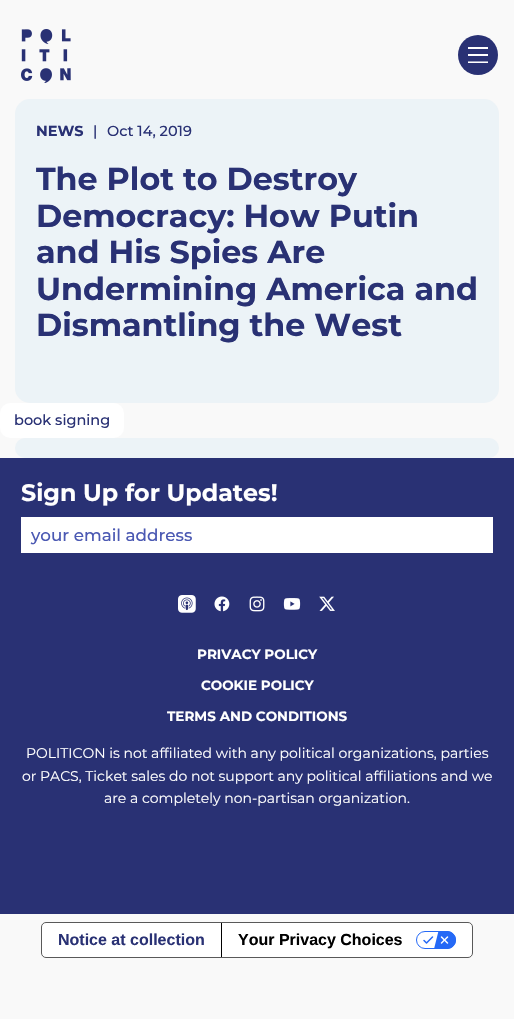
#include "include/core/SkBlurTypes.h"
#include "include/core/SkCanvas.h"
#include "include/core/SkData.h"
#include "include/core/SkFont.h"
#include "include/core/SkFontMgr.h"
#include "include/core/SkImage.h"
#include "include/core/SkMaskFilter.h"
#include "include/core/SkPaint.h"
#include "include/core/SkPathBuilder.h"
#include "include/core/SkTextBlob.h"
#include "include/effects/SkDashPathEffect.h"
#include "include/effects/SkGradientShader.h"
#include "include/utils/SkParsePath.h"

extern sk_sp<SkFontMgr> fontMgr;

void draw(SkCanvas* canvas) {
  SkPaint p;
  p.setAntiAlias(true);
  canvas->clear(SkColorSetRGB(249, 249, 249));
  canvas->drawImageRect(SkImages::DeferredFromEncodedData(SkData::MakeFromFileName("images/1.png")), SkRect::MakeLTRB(21, 29, 71, 83), SkSamplingOptions());
  p.setColor(SkColorSetRGB(41, 49, 116));
  canvas->drawCircle(478, 55, 20, p);
  p.setColor(SK_ColorWHITE);
  canvas->drawRect(SkRect::MakeLTRB(468, 47, 488, 49), p);
  canvas->drawRect(SkRect::MakeLTRB(468, 54, 488, 56), p);
  canvas->save();
  canvas->clipRect(SkRect::MakeLTRB(468, 47, 488, 63));
  p.setStyle(SkPaint::kStroke_Style);
  p.setStrokeWidth(2.1f);
  canvas->drawPath(SkPathBuilder().moveTo(468, 62.5f).lineTo(488, 62.5f).detach(), p);
  canvas->restore();
  p.setStyle(SkPaint::kFill_Style);
  p.setColor(SkColorSetRGB(236, 243, 247));
  canvas->drawRoundRect(SkRect::MakeLTRB(15, 99, 499, 403), 15, 15, p);
  p.setColor(SK_ColorWHITE);
  canvas->drawRoundRect(SkRect::MakeLTRB(0, 403, 124, 438), 10, 10, p);
  p.setColor(SkColorSetRGB(236, 243, 247));
  canvas->drawRoundRect(SkRect::MakeLTRB(15, 438, 499, 458), 10, 10, p);
  p.setColor(SkColorSetRGB(41, 49, 116));
  canvas->drawRect(SkRect::MakeLTRB(0, 458, 514, 914), p);
  p.setColor(SK_ColorWHITE);
  canvas->drawRect(SkRect::MakeLTRB(21, 517, 493, 553), p);
  canvas->drawImageRect(SkImages::DeferredFromEncodedData(SkData::MakeFromFileName("images/2.png")), SkRect::MakeLTRB(178, 595, 196, 613), SkSamplingOptions());
  canvas->drawImageRect(SkImages::DeferredFromEncodedData(SkData::MakeFromFileName("images/3.png")), SkRect::MakeLTRB(214, 596, 230, 612), SkSamplingOptions());
  canvas->drawImageRect(SkImages::DeferredFromEncodedData(SkData::MakeFromFileName("images/4.png")), SkRect::MakeLTRB(249, 596, 265, 612), SkSamplingOptions());
  canvas->drawImageRect(SkImages::DeferredFromEncodedData(SkData::MakeFromFileName("images/5.png")), SkRect::MakeLTRB(283, 598, 301, 610), SkSamplingOptions());
  canvas->drawImageRect(SkImages::DeferredFromEncodedData(SkData::MakeFromFileName("images/6.png")), SkRect::MakeLTRB(319, 596, 335, 611), SkSamplingOptions());
  canvas->drawRoundRect(SkRect::MakeLTRB(41.5f, 922.5f, 472.5f, 957.5f), 4.5f, 4.5f, p);
  p.setStyle(SkPaint::kStroke_Style);
  p.setStrokeWidth(1);
  p.setColor(SkColorSetRGB(89, 89, 89));
  canvas->drawRoundRect(SkRect::MakeLTRB(41.5f, 922.5f, 472.5f, 957.5f), 4.5f, 4.5f, p);
  p.setStyle(SkPaint::kFill_Style);
  p.setColor(SK_ColorBLACK);
  canvas->drawRect(SkRect::MakeLTRB(221, 923, 222, 957), p);
  canvas->drawImageRect(SkImages::DeferredFromEncodedData(SkData::MakeFromFileName("images/7.png")), SkRect::MakeLTRB(416, 931, 456, 949), SkSamplingOptions());
  SkFont font1(fontMgr->matchFamilyStyle("Montserrat", SkFontStyle::Bold()), 14.5f);
  font1.setSubpixel(true);
  p.setColor(SkColorSetRGB(41, 49, 116));
  canvas->drawString("NEWS", 36, 136, font1, p);
  SkFont font2(fontMgr->matchFamilyStyle("Montserrat", SkFontStyle(500, SkFontStyle::kNormal_Width, SkFontStyle::kUpright_Slant)), 14.5f);
  font2.setSubpixel(true);
  canvas->drawString("|", 93, 136, font2, p);
  canvas->drawString("Oct 14, 2019", 107, 136, font2, p);
  SkFont font3(fontMgr->matchFamilyStyle("Montserrat", SkFontStyle::Bold()), 31.75f);
  font3.setSubpixel(true);
  canvas->drawString("The Plot to Destroy", 36, 190, font3, p);
  canvas->drawString("Democracy: How Putin", 36, 227, font3, p);
  canvas->drawString("and His Spies Are", 36, 263, font3, p);
  canvas->drawString("Undermining America and", 36, 300, font3, p);
  canvas->drawString("Dismantling the West", 36, 336, font3, p);
  canvas->drawString("book signing", 14, 425, font2, p);
  SkFont font4(fontMgr->matchFamilyStyle("Montserrat", SkFontStyle::Bold()), 23.75f);
  font4.setSubpixel(true);
  p.setColor(SK_ColorWHITE);
  canvas->drawString("Sign Up for Updates!", 21, 501, font4, p);
  SkFont font5(fontMgr->matchFamilyStyle("Montserrat", SkFontStyle(500, SkFontStyle::kNormal_Width, SkFontStyle::kUpright_Slant)), 16.75f);
  font5.setSubpixel(true);
  p.setColor(SkColorSetRGB(75, 89, 179));
  canvas->drawString("your email address", 31, 541, font5, p);
  SkFont font6(fontMgr->matchFamilyStyle("Montserrat", SkFontStyle::Bold()), 13.5f);
  font6.setSubpixel(true);
  p.setColor(SK_ColorWHITE);
  canvas->drawString("PRIVACY POLICY", 197, 659, font6, p);
  canvas->drawString("COOKIE POLICY", 201, 690, font6, p);
  canvas->drawString("TERMS AND CONDITIONS", 167, 721, font6, p);
  SkFont font7(fontMgr->matchFamilyStyle("Montserrat", SkFontStyle::Normal()), 14);
  font7.setSubpixel(true);
  canvas->drawString("POLITICON is not affiliated with any political organizations, parties", 26, 758, font7, p);
  canvas->drawString("or PACS, Ticket sales do not support any political affiliations and we", 22, 781, font7, p);
  canvas->drawString("are a completely non-partisan organization.", 104, 803, font7, p);
  SkFont font8(fontMgr->matchFamilyStyle("Liberation Sans", SkFontStyle::Bold()), 16);
  font8.setSubpixel(true);
  p.setColor(SkColorSetRGB(41, 49, 116));
  canvas->drawString("Notice at collection", 58, 945, font8, p);
  p.setColor(SK_ColorBLACK);
  canvas->drawString("Your Privacy Choices", 238, 945, font8, p);
}
